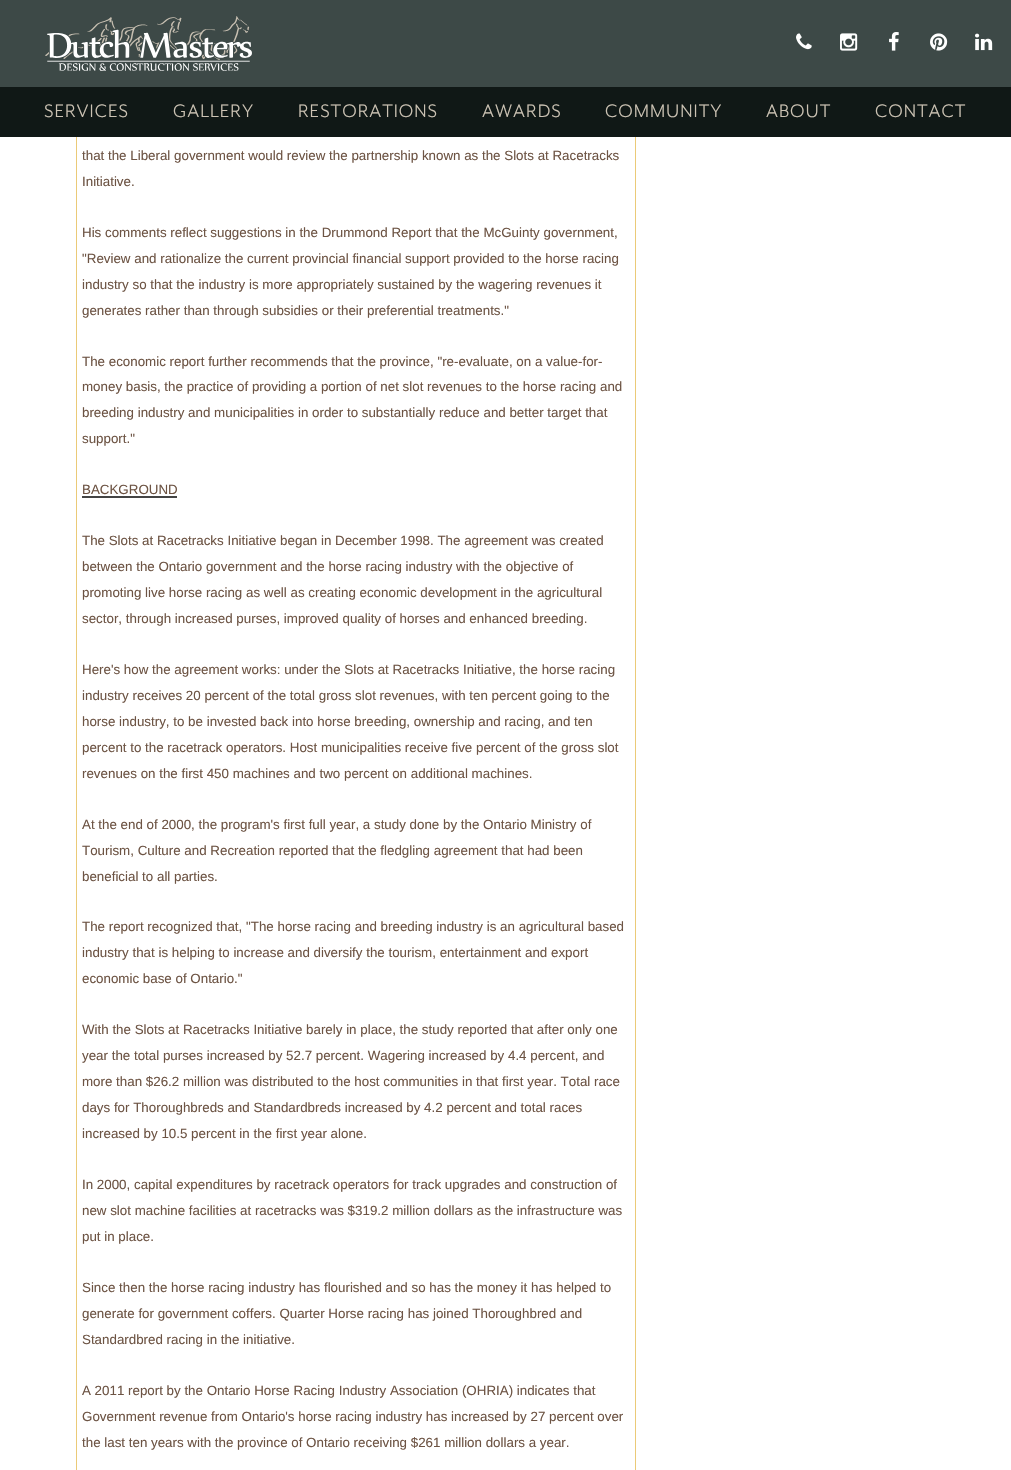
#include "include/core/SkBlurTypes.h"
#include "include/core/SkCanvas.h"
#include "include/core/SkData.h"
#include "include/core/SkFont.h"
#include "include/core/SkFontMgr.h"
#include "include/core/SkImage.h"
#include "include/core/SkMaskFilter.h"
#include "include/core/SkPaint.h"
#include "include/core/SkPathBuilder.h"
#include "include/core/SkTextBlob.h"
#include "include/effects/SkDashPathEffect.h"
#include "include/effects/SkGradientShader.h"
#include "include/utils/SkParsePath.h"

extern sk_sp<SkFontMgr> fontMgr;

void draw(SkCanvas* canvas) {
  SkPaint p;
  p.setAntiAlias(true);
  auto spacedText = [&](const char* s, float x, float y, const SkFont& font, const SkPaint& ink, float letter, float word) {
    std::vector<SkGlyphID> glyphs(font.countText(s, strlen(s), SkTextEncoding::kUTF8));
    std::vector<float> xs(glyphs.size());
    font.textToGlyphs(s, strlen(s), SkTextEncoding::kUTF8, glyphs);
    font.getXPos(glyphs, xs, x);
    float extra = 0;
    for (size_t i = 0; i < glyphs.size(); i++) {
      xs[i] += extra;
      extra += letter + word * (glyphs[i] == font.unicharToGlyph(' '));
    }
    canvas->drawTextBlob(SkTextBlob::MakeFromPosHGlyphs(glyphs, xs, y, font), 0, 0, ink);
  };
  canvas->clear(SK_ColorWHITE);
  p.setColor(SkColorSetRGB(61, 73, 71));
  canvas->drawRect(SkRect::MakeLTRB(0, 0, 1011, 87), p);
  canvas->drawImageRect(SkImages::DeferredFromEncodedData(SkData::MakeFromFileName("images/1.png")), SkRect::MakeLTRB(45, 16, 252, 71), SkSamplingOptions());
  canvas->drawImageRect(SkImages::DeferredFromEncodedData(SkData::MakeFromFileName("images/2.png")), SkRect::MakeLTRB(796, 33, 812, 50), SkSamplingOptions());
  canvas->drawImageRect(SkImages::DeferredFromEncodedData(SkData::MakeFromFileName("images/3.png")), SkRect::MakeLTRB(840, 33, 858, 51), SkSamplingOptions());
  canvas->drawImageRect(SkImages::DeferredFromEncodedData(SkData::MakeFromFileName("images/4.png")), SkRect::MakeLTRB(889, 32, 899, 51), SkSamplingOptions());
  canvas->drawImageRect(SkImages::DeferredFromEncodedData(SkData::MakeFromFileName("images/5.png")), SkRect::MakeLTRB(930, 33, 948, 51), SkSamplingOptions());
  canvas->drawImageRect(SkImages::DeferredFromEncodedData(SkData::MakeFromFileName("images/6.png")), SkRect::MakeLTRB(975, 33, 993, 51), SkSamplingOptions());
  p.setColor(SkColorSetRGB(16, 24, 22));
  canvas->drawRect(SkRect::MakeLTRB(0, 87, 1011, 137), p);
  p.setColor(SkColorSetRGB(235, 202, 120));
  canvas->drawRect(SkRect::MakeLTRB(76, 137, 636, 1470), p);
  p.setColor(SK_ColorWHITE);
  canvas->drawRect(SkRect::MakeLTRB(77, 137, 635, 1470), p);
  p.setColor(SkColorSetRGB(68, 68, 68));
  canvas->drawRect(SkRect::MakeLTRB(82, 496, 177, 498), p);
  SkFont font1(fontMgr->matchFamilyStyle("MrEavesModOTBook", SkFontStyle::Normal()), 20.75f);
  font1.setSubpixel(true);
  p.setColor(SkColorSetRGB(204, 195, 180));
  spacedText("SERVICES", 44, 117, font1, p, 1, 0);
  spacedText("GALLERY", 173, 117, font1, p, 1, 0);
  spacedText("RESTORATIONS", 298, 117, font1, p, 1, 0);
  spacedText("AWARDS", 482, 117, font1, p, 1, 0);
  spacedText("COMMUNITY", 605, 117, font1, p, 1, 0);
  spacedText("ABOUT", 766, 117, font1, p, 1, 0);
  spacedText("CONTACT", 875, 117, font1, p, 1, 0);
  SkFont font2(fontMgr->matchFamilyStyle("Liberation Sans", SkFontStyle::Normal()), 13.35f);
  font2.setSubpixel(true);
  p.setColor(SkColorSetRGB(109, 84, 68));
  canvas->drawString("that the Liberal government would review the partnership known as the Slots at Racetracks", 82, 160, font2, p);
  canvas->drawString("Initiative.", 82, 186, font2, p);
  canvas->drawString("His comments reflect suggestions in the Drummond Report that the McGuinty government,", 82, 237, font2, p);
  canvas->drawString("\"Review and rationalize the current provincial financial support provided to the horse racing", 82, 263, font2, p);
  canvas->drawString("industry so that the industry is more appropriately sustained by the wagering revenues it", 82, 289, font2, p);
  canvas->drawString("generates rather than through subsidies or their preferential treatments.\"", 82, 315, font2, p);
  canvas->drawString("The economic report further recommends that the province, \"re-evaluate, on a value-for-", 82, 366, font2, p);
  canvas->drawString("money basis, the practice of providing a portion of net slot revenues to the horse racing and", 82, 391, font2, p);
  canvas->drawString("breeding industry and municipalities in order to substantially reduce and better target that", 82, 417, font2, p);
  canvas->drawString("support.\"", 82, 443, font2, p);
  canvas->drawString("BACKGROUND", 82, 494, font2, p);
  canvas->drawString("The Slots at Racetracks Initiative began in December 1998. The agreement was created", 82, 545, font2, p);
  canvas->drawString("between the Ontario government and the horse racing industry with the objective of", 82, 571, font2, p);
  canvas->drawString("promoting live horse racing as well as creating economic development in the agricultural", 82, 597, font2, p);
  canvas->drawString("sector, through increased purses, improved quality of horses and enhanced breeding.", 82, 623, font2, p);
  canvas->drawString("Here's how the agreement works: under the Slots at Racetracks Initiative, the horse racing", 82, 674, font2, p);
  canvas->drawString("industry receives 20 percent of the total gross slot revenues, with ten percent going to the", 82, 700, font2, p);
  canvas->drawString("horse industry, to be invested back into horse breeding, ownership and racing, and ten", 82, 726, font2, p);
  canvas->drawString("percent to the racetrack operators. Host municipalities receive five percent of the gross slot", 82, 752, font2, p);
  canvas->drawString("revenues on the first 450 machines and two percent on additional machines.", 82, 778, font2, p);
  canvas->drawString("At the end of 2000, the program's first full year, a study done by the Ontario Ministry of", 82, 829, font2, p);
  canvas->drawString("Tourism, Culture and Recreation reported that the fledgling agreement that had been", 82, 855, font2, p);
  canvas->drawString("beneficial to all parties.", 82, 881, font2, p);
  canvas->drawString("The report recognized that, \"The horse racing and breeding industry is an agricultural based", 82, 931, font2, p);
  canvas->drawString("industry that is helping to increase and diversify the tourism, entertainment and export", 82, 957, font2, p);
  canvas->drawString("economic base of Ontario.\"", 82, 983, font2, p);
  canvas->drawString("With the Slots at Racetracks Initiative barely in place, the study reported that after only one", 82, 1034, font2, p);
  canvas->drawString("year the total purses increased by 52.7 percent. Wagering increased by 4.4 percent, and", 82, 1060, font2, p);
  canvas->drawString("more than $26.2 million was distributed to the host communities in that first year. Total race", 82, 1086, font2, p);
  canvas->drawString("days for Thoroughbreds and Standardbreds increased by 4.2 percent and total races", 82, 1112, font2, p);
  canvas->drawString("increased by 10.5 percent in the first year alone.", 82, 1138, font2, p);
  canvas->drawString("In 2000, capital expenditures by racetrack operators for track upgrades and construction of", 82, 1189, font2, p);
  canvas->drawString("new slot machine facilities at racetracks was $319.2 million dollars as the infrastructure was", 82, 1215, font2, p);
  canvas->drawString("put in place.", 82, 1241, font2, p);
  canvas->drawString("Since then the horse racing industry has flourished and so has the money it has helped to", 82, 1292, font2, p);
  canvas->drawString("generate for government coffers. Quarter Horse racing has joined Thoroughbred and", 82, 1318, font2, p);
  canvas->drawString("Standardbred racing in the initiative.", 82, 1344, font2, p);
  canvas->drawString("A 2011 report by the Ontario Horse Racing Industry Association (OHRIA) indicates that", 82, 1395, font2, p);
  canvas->drawString("Government revenue from Ontario's horse racing industry has increased by 27 percent over", 82, 1421, font2, p);
  canvas->drawString("the last ten years with the province of Ontario receiving $261 million dollars a year.", 82, 1447, font2, p);
}
